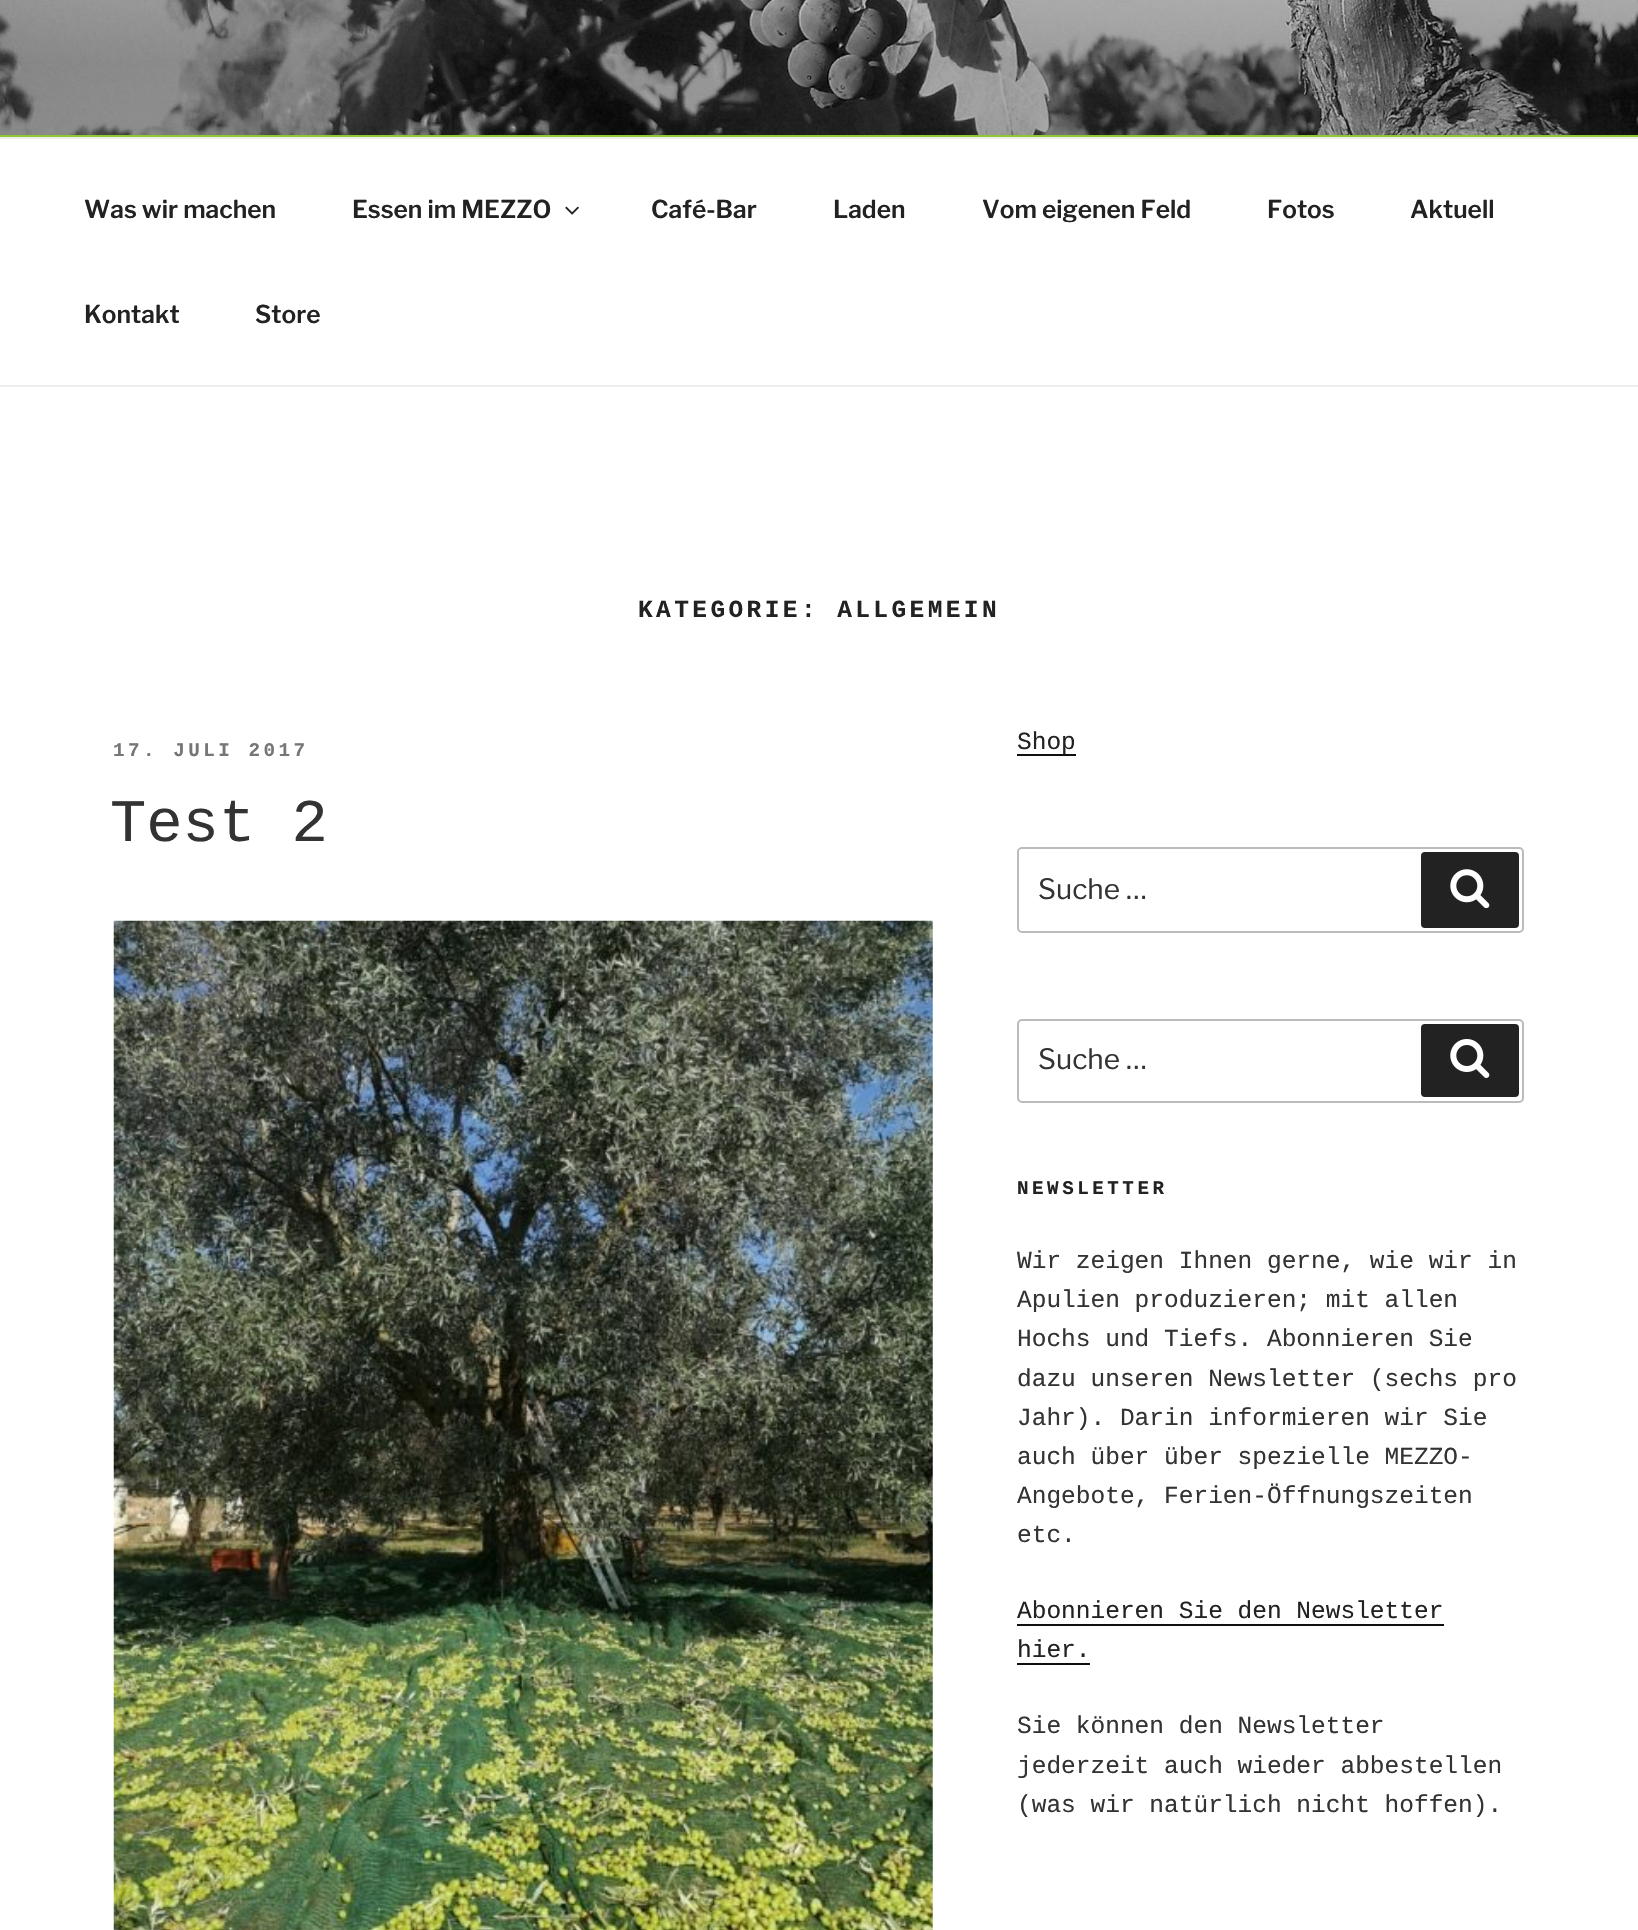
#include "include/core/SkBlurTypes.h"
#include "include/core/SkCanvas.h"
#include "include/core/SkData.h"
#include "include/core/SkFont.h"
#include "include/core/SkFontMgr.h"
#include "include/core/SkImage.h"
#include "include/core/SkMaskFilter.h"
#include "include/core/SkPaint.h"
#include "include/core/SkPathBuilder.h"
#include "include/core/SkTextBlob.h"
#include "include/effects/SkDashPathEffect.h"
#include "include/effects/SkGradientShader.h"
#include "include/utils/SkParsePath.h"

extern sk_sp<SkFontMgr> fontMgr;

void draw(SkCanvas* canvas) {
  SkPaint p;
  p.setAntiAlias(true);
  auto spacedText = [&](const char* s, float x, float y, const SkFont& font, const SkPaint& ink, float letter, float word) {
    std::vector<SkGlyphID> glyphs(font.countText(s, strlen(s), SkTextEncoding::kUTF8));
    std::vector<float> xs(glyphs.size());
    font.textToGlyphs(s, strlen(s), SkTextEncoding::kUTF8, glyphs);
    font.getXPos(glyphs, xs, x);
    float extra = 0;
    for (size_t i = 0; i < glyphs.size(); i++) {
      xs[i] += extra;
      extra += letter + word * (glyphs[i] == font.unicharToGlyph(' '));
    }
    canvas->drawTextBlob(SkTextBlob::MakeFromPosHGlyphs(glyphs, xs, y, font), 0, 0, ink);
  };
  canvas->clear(SK_ColorWHITE);
  p.setColor(SkColorSetRGB(145, 198, 45));
  canvas->drawRect(SkRect::MakeLTRB(0, 135, 1638, 137), p);
  canvas->drawImageRect(SkImages::DeferredFromEncodedData(SkData::MakeFromFileName("images/1.png")), SkRect::MakeLTRB(0, 0, 1638, 135), SkSamplingOptions());
  p.setColor(SkColorSetRGB(238, 238, 238));
  canvas->drawRect(SkRect::MakeLTRB(0, 137, 1638, 139), p);
  canvas->drawRect(SkRect::MakeLTRB(0, 385, 1638, 387), p);
  canvas->drawImageRect(SkImages::DeferredFromEncodedData(SkData::MakeFromFileName("images/2.png")), SkRect::MakeLTRB(565, 206, 579, 215), SkSamplingOptions());
  canvas->drawImageRect(SkImages::DeferredFromEncodedData(SkData::MakeFromFileName("images/3.png")), SkRect::MakeLTRB(113, 920, 933, 1930), SkSamplingOptions());
  p.setColor(SkColorSetRGB(15, 15, 15));
  canvas->drawRect(SkRect::MakeLTRB(1017, 754, 1076, 756), p);
  p.setStyle(SkPaint::kStroke_Style);
  p.setStrokeWidth(2);
  p.setColor(SkColorSetRGB(187, 187, 187));
  canvas->drawRoundRect(SkRect::MakeLTRB(1018, 848, 1523, 932), 4, 4, p);
  p.setStyle(SkPaint::kFill_Style);
  p.setColor(SkColorSetRGB(34, 34, 34));
  canvas->drawRoundRect(SkRect::MakeLTRB(1421, 852, 1519, 928), 4, 4, p);
  canvas->drawImageRect(SkImages::DeferredFromEncodedData(SkData::MakeFromFileName("images/4.png")), SkRect::MakeLTRB(1450, 869, 1490, 908), SkSamplingOptions());
  p.setStyle(SkPaint::kStroke_Style);
  p.setColor(SkColorSetRGB(187, 187, 187));
  canvas->drawRoundRect(SkRect::MakeLTRB(1018, 1020, 1523, 1102), 4, 4, p);
  p.setStyle(SkPaint::kFill_Style);
  p.setColor(SkColorSetRGB(34, 34, 34));
  canvas->drawRoundRect(SkRect::MakeLTRB(1421, 1024, 1519, 1097), 4, 4, p);
  canvas->drawImageRect(SkImages::DeferredFromEncodedData(SkData::MakeFromFileName("images/5.png")), SkRect::MakeLTRB(1450, 1039, 1490, 1078), SkSamplingOptions());
  p.setColor(SkColorSetRGB(15, 15, 15));
  canvas->drawRect(SkRect::MakeLTRB(1017, 1624, 1444, 1626), p);
  canvas->drawRect(SkRect::MakeLTRB(1017, 1663, 1090, 1665), p);
  SkFont font1(fontMgr->matchFamilyStyle("Libre Franklin", SkFontStyle(600, SkFontStyle::kNormal_Width, SkFontStyle::kUpright_Slant)), 24.5f);
  font1.setSubpixel(true);
  p.setColor(SkColorSetRGB(34, 34, 34));
  canvas->drawString("Was wir machen", 84, 218, font1, p);
  canvas->drawString("Essen im MEZZO", 352, 218, font1, p);
  canvas->drawString("Café-Bar", 651, 218, font1, p);
  canvas->drawString("Laden", 833, 218, font1, p);
  canvas->drawString("Vom eigenen Feld", 982, 218, font1, p);
  canvas->drawString("Fotos", 1267, 218, font1, p);
  canvas->drawString("Aktuell", 1410, 218, font1, p);
  canvas->drawString("Kontakt", 84, 323, font1, p);
  canvas->drawString("Store", 255, 323, font1, p);
  SkFont font2(fontMgr->matchFamilyStyle("Liberation Mono", SkFontStyle::Bold()), 24.5f);
  font2.setSubpixel(true);
  spacedText("KATEGORIE: ALLGEMEIN", 638, 617, font2, p, 3.4f, 0);
  SkFont font3(fontMgr->matchFamilyStyle("Liberation Mono", SkFontStyle::Bold()), 19.25f);
  font3.setSubpixel(true);
  p.setColor(SkColorSetRGB(118, 118, 118));
  spacedText("17. JULI 2017", 113, 756, font3, p, 3.5f, 0);
  SkFont font4(fontMgr->matchFamilyStyle("Liberation Mono", SkFontStyle::Normal()), 60.5f);
  font4.setSubpixel(true);
  p.setColor(SkColorSetRGB(51, 51, 51));
  canvas->drawString("Test 2", 110, 841, font4, p);
  SkFont font5(fontMgr->matchFamilyStyle("Liberation Mono", SkFontStyle::Normal()), 24.5f);
  font5.setSubpixel(true);
  p.setColor(SkColorSetRGB(34, 34, 34));
  canvas->drawString("Shop", 1017, 749, font5, p);
  SkFont font6(fontMgr->matchFamilyStyle("Libre Franklin", SkFontStyle::Normal()), 28);
  font6.setSubpixel(true);
  p.setColor(SkColorSetRGB(51, 51, 51));
  canvas->drawString("Suche …", 1038, 899, font6, p);
  canvas->drawString("Suche …", 1038, 1069, font6, p);
  p.setColor(SkColorSetRGB(34, 34, 34));
  spacedText("NEWSLETTER", 1017, 1194, font3, p, 3.5f, 0);
  p.setColor(SkColorSetRGB(51, 51, 51));
  canvas->drawString("Wir zeigen Ihnen gerne, wie wir in", 1017, 1268, font5, p);
  canvas->drawString("Apulien produzieren; mit allen", 1017, 1307, font5, p);
  canvas->drawString("Hochs und Tiefs. Abonnieren Sie", 1017, 1346, font5, p);
  canvas->drawString("dazu unseren Newsletter (sechs pro", 1017, 1386, font5, p);
  canvas->drawString("Jahr). Darin informieren wir Sie", 1017, 1425, font5, p);
  canvas->drawString("auch über über spezielle MEZZO-", 1017, 1464, font5, p);
  canvas->drawString("Angebote, Ferien-Öffnungszeiten", 1017, 1503, font5, p);
  canvas->drawString("etc.", 1017, 1542, font5, p);
  p.setColor(SkColorSetRGB(34, 34, 34));
  canvas->drawString("Abonnieren Sie den Newsletter", 1017, 1618, font5, p);
  canvas->drawString("hier.", 1017, 1657, font5, p);
  p.setColor(SkColorSetRGB(51, 51, 51));
  canvas->drawString("Sie können den Newsletter", 1017, 1733, font5, p);
  canvas->drawString("jederzeit auch wieder abbestellen", 1017, 1773, font5, p);
  canvas->drawString("(was wir natürlich nicht hoffen).", 1017, 1812, font5, p);
}
